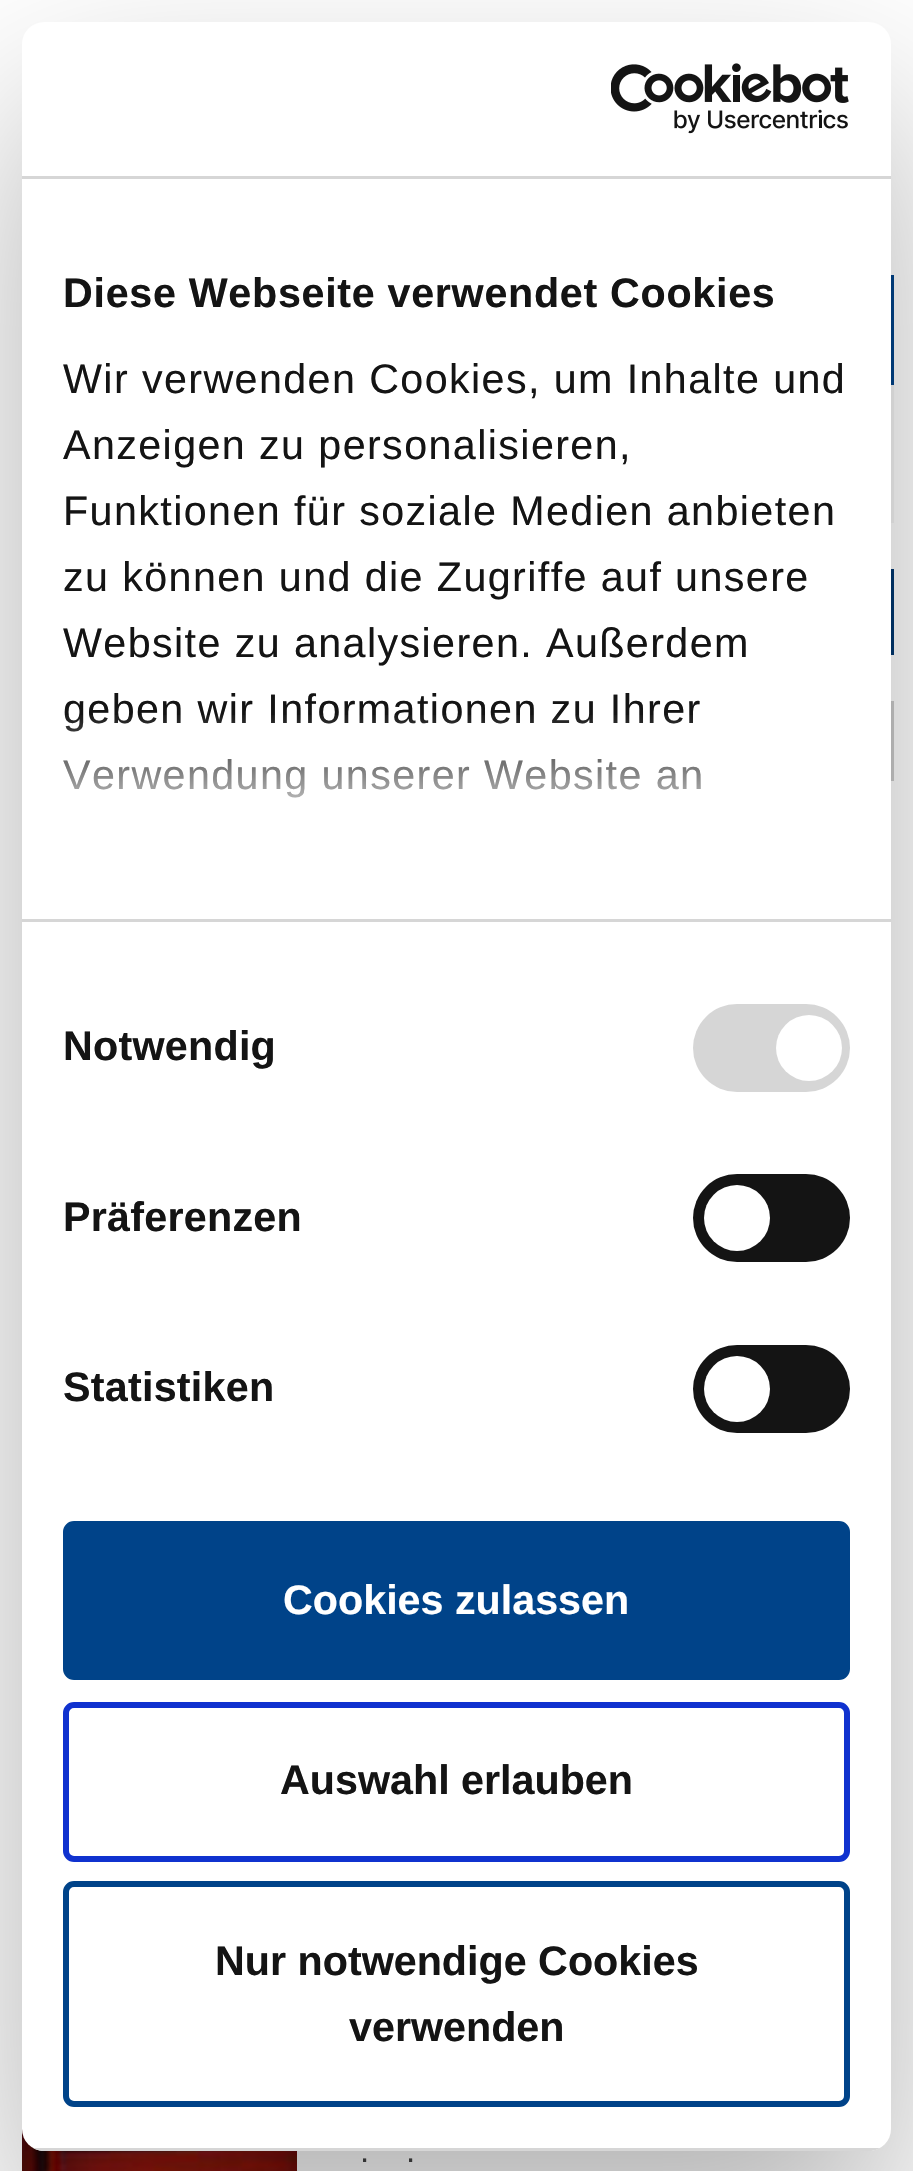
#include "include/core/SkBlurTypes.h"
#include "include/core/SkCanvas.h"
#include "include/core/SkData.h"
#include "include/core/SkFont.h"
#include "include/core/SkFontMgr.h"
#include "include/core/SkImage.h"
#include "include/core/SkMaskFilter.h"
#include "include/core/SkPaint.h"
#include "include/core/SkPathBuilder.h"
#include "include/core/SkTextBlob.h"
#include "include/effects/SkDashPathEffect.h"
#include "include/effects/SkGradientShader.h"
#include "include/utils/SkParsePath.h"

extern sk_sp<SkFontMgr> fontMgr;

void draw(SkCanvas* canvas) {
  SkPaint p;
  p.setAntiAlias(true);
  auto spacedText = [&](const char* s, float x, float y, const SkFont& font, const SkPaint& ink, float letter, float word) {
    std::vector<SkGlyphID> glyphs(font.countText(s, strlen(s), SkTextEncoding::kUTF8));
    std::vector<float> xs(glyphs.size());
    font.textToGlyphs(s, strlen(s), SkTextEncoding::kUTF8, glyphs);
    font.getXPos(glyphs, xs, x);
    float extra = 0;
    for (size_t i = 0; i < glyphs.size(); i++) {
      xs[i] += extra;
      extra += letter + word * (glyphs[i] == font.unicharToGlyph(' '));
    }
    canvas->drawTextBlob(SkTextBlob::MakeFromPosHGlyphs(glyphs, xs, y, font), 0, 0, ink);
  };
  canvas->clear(SK_ColorWHITE);
  p.setColor(SkColorSetRGB(0, 67, 137));
  canvas->drawRect(SkRect::MakeLTRB(891, 275, 894, 385), p);
  p.setColor(SkColorSetRGB(245, 245, 245));
  canvas->drawRect(SkRect::MakeLTRB(891, 385, 894, 523), p);
  p.setStyle(SkPaint::kStroke_Style);
  p.setStrokeWidth(3);
  p.setColor(SkColorSetRGB(0, 55, 112));
  canvas->drawRect(SkRect::MakeLTRB(513.5f, 570.5f, 892.5f, 653.5f), p);
  p.setColor(SkColorSetRGB(204, 204, 204));
  canvas->drawRect(SkRect::MakeLTRB(801.5f, 702.5f, 892.5f, 779.5f), p);
  canvas->drawImageRect(SkImages::DeferredFromEncodedData(SkData::MakeFromFileName("images/2.png")), SkRect::MakeLTRB(22, 2129, 297, 2171), SkSamplingOptions());
  p.setStyle(SkPaint::kFill_Style);
  p.setColor(SkColorSetARGB(77, 0, 0, 0));
  p.setMaskFilter(SkMaskFilter::MakeBlur(kNormal_SkBlurStyle, 93.5f));
  canvas->drawRoundRect(SkRect::MakeLTRB(22, 110, 891, 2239), 22, 22, p);
  p.setMaskFilter(nullptr);
  p.setColor(SK_ColorWHITE);
  canvas->drawRoundRect(SkRect::MakeLTRB(22, 22, 891, 2151), 22, 22, p);
  p.setColor(SkColorSetRGB(214, 214, 214));
  canvas->drawRect(SkRect::MakeLTRB(22, 176, 891, 179), p);
  canvas->drawImageRect(SkImages::DeferredFromEncodedData(SkData::MakeFromFileName("images/1.png")), SkRect::MakeLTRB(611, 63, 849, 134), SkSamplingOptions());
  canvas->drawRect(SkRect::MakeLTRB(22, 919, 891, 922), p);
  canvas->drawRoundRect(SkRect::MakeLTRB(693, 1004, 850, 1092), 44, 44, p);
  p.setColor(SK_ColorWHITE);
  canvas->drawCircle(809, 1048, 33, p);
  p.setColor(SkColorSetRGB(20, 20, 20));
  canvas->drawRoundRect(SkRect::MakeLTRB(693, 1174, 850, 1262), 44, 44, p);
  p.setColor(SK_ColorWHITE);
  canvas->drawCircle(737, 1218, 33, p);
  p.setColor(SkColorSetRGB(20, 20, 20));
  canvas->drawRoundRect(SkRect::MakeLTRB(693, 1345, 850, 1433), 44, 44, p);
  p.setColor(SK_ColorWHITE);
  canvas->drawCircle(737, 1389, 33, p);
  canvas->save();
  canvas->clipPath(SkPathBuilder().moveTo(44, 22).lineTo(869, 22).cubicTo(881, 22, 891, 32, 891, 44).lineTo(891, 2129).cubicTo(891, 2141, 881, 2151, 869, 2151).lineTo(44, 2151).cubicTo(32, 2151, 22, 2141, 22, 2129).lineTo(22, 44).cubicTo(22, 32, 32, 22, 44, 22).close().detach(), true);
  p.setColor(SkColorSetRGB(214, 214, 214));
  canvas->drawRect(SkRect::MakeLTRB(33, 2148, 880, 2151), p);
  canvas->restore();
  p.setColor(SkColorSetRGB(0, 67, 137));
  canvas->drawRoundRect(SkRect::MakeLTRB(66, 1524, 847, 1677), 8, 8, p);
  p.setStyle(SkPaint::kStroke_Style);
  p.setStrokeWidth(6);
  canvas->drawRoundRect(SkRect::MakeLTRB(66, 1524, 847, 1677), 8, 8, p);
  p.setColor(SkColorSetRGB(16, 50, 207));
  canvas->drawRoundRect(SkRect::MakeLTRB(66, 1705, 847, 1859), 8, 8, p);
  p.setColor(SkColorSetRGB(0, 67, 137));
  canvas->drawRoundRect(SkRect::MakeLTRB(66, 1884, 847, 2104), 8, 8, p);
  SkFont font1(fontMgr->matchFamilyStyle("Liberation Sans", SkFontStyle::Bold()), 41.25f);
  font1.setSubpixel(true);
  p.setStyle(SkPaint::kFill_Style);
  p.setColor(SkColorSetRGB(20, 20, 20));
  spacedText("Diese Webseite verwendet Cookies", 63, 307, font1, p, 0.7f, 0);
  SkFont font2(fontMgr->matchFamilyStyle("Liberation Sans", SkFontStyle::Normal()), 41.25f);
  font2.setSubpixel(true);
  spacedText("Wir verwenden Cookies, um Inhalte und", 63, 393, font2, p, 1.4f, 0);
  spacedText("Anzeigen zu personalisieren,", 63, 459, font2, p, 1.4f, 0);
  spacedText("Funktionen für soziale Medien anbieten", 63, 525, font2, p, 1.4f, 0);
  spacedText("zu können und die Zugriffe auf unsere", 63, 591, font2, p, 1.4f, 0);
  spacedText("Website zu analysieren. Außerdem", 63, 657, font2, p, 1.4f, 0);
  spacedText("geben wir Informationen zu Ihrer", 63, 723, font2, p, 1.4f, 0);
  spacedText("Verwendung unserer Website an", 63, 789, font2, p, 1.4f, 0);
  {
    const SkColor colors[] = {SK_ColorWHITE, SkColorSetARGB(204, 255, 255, 255), SkColorSetARGB(0, 255, 255, 255)};
    const float stops[] = {0, 0.5f, 1};
    const SkPoint ends[] = {{439, 919}, {439, 712}};
    p.setShader(SkGradientShader::MakeLinear(ends, colors, stops, 3, SkTileMode::kClamp));
    p.setAlpha(255);
  }
  canvas->drawRect(SkRect::MakeLTRB(63, 715, 700, 798), p);
  p.setShader(nullptr);
  p.setColor(SkColorSetRGB(20, 20, 20));
  spacedText("Notwendig", 63, 1060, font1, p, 0.25f, 0);
  spacedText("Präferenzen", 63, 1231, font1, p, 0.25f, 0);
  spacedText("Statistiken", 63, 1401, font1, p, 0.25f, 0);
  p.setColor(SK_ColorWHITE);
  canvas->drawString("Cookies zulassen", 283, 1614, font1, p);
  p.setColor(SkColorSetRGB(20, 20, 20));
  canvas->drawString("Auswahl erlauben", 280, 1794, font1, p);
  canvas->drawString("Nur notwendige Cookies", 215, 1975, font1, p);
  canvas->drawString("verwenden", 349, 2041, font1, p);
  SkFont font3(fontMgr->matchFamilyStyle("Liberation Sans", SkFontStyle::Normal()), 33);
  font3.setSubpixel(true);
  p.setColor(SkColorSetRGB(51, 51, 51));
  canvas->drawString(".", 360, 2162, font3, p);
  canvas->drawString(".", 406, 2162, font3, p);
}
